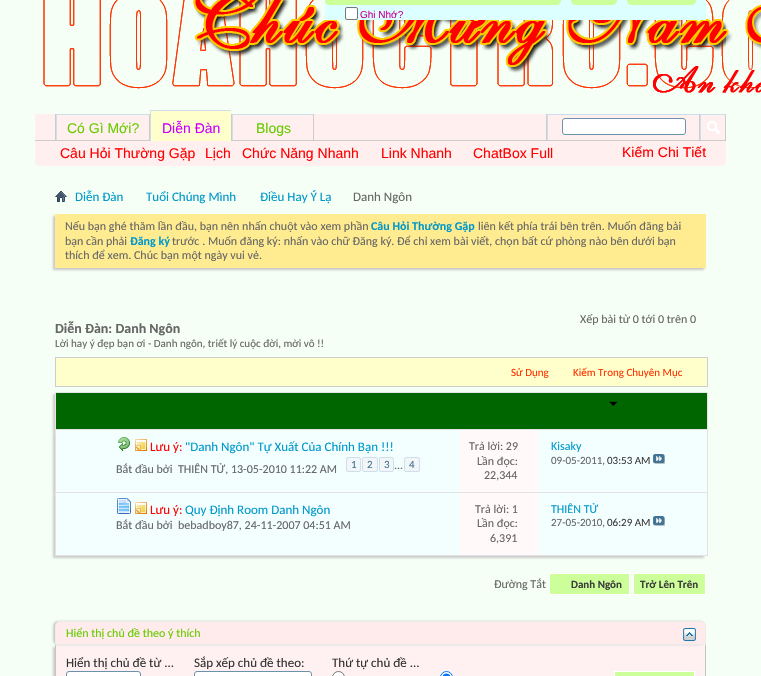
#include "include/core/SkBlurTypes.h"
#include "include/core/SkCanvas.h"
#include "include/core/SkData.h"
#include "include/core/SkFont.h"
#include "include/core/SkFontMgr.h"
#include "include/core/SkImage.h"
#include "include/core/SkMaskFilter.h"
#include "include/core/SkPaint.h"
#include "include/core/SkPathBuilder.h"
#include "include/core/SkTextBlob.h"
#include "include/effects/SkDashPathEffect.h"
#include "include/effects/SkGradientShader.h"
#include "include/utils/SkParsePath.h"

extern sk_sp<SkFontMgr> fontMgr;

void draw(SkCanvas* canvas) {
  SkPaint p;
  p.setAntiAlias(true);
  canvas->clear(SkColorSetRGB(245, 255, 245));
  canvas->drawImageRect(SkImages::DeferredFromEncodedData(SkData::MakeFromFileName("images/1.png")), SkRect::MakeLTRB(43, 0, 726, 93), SkSamplingOptions());
  canvas->drawImageRect(SkImages::DeferredFromEncodedData(SkData::MakeFromFileName("images/2.png")), SkRect::MakeLTRB(43, 0, 761, 93), SkSamplingOptions());
  p.setColor(SkColorSetRGB(220, 255, 255));
  canvas->drawRect(SkRect::MakeLTRB(325, 0, 706, 20), p);
  p.setColor(SkColorSetRGB(204, 255, 153));
  canvas->drawPath(SkPathBuilder().moveTo(571, -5).lineTo(617, -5).lineTo(617, 0).cubicTo(617, 3, 615, 5, 612, 5).lineTo(576, 5).cubicTo(573, 5, 571, 3, 571, 0).close().detach(), p);
  canvas->drawPath(SkPathBuilder().moveTo(627, -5).lineTo(696, -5).lineTo(696, 0).cubicTo(696, 3, 694, 5, 691, 5).lineTo(632, 5).cubicTo(629, 5, 627, 3, 627, 0).close().detach(), p);
  canvas->drawPath(SkPathBuilder().moveTo(325, -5).lineTo(561, -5).lineTo(561, 0).cubicTo(561, 3, 559, 5, 556, 5).lineTo(330, 5).cubicTo(327, 5, 325, 3, 325, 0).close().detach(), p);
  p.setColor(SK_ColorWHITE);
  canvas->drawRoundRect(SkRect::MakeLTRB(345.5f, 7.5f, 357.5f, 19.5f), 1.5f, 1.5f, p);
  p.setStyle(SkPaint::kStroke_Style);
  p.setStrokeWidth(1);
  p.setColor(SkColorSetRGB(118, 118, 118));
  canvas->drawRoundRect(SkRect::MakeLTRB(345.5f, 7.5f, 357.5f, 19.5f), 1.5f, 1.5f, p);
  p.setStyle(SkPaint::kFill_Style);
  p.setColor(SkColorSetRGB(255, 239, 239));
  canvas->drawPath(SkPathBuilder().moveTo(35, 114).lineTo(726, 114).lineTo(726, 161).cubicTo(726, 164, 724, 166, 721, 166).lineTo(40, 166).cubicTo(37, 166, 35, 164, 35, 161).close().detach(), p);
  p.setColor(SkColorSetRGB(204, 204, 204));
  canvas->drawRect(SkRect::MakeLTRB(149, 114, 150, 141), p);
  canvas->drawRect(SkRect::MakeLTRB(55, 114, 56, 141), p);
  p.setColor(SkColorSetRGB(206, 223, 235));
  canvas->drawRect(SkRect::MakeLTRB(56, 114, 149, 115), p);
  canvas->drawRect(SkRect::MakeLTRB(56, 114, 57, 141), p);
  p.setColor(SkColorSetRGB(204, 204, 204));
  canvas->drawRect(SkRect::MakeLTRB(231, 114, 232, 140), p);
  canvas->drawRect(SkRect::MakeLTRB(313, 114, 314, 141), p);
  p.setColor(SkColorSetRGB(206, 223, 235));
  canvas->drawRect(SkRect::MakeLTRB(232, 114, 313, 115), p);
  canvas->drawRect(SkRect::MakeLTRB(232, 114, 233, 141), p);
  p.setColor(SkColorSetRGB(204, 204, 204));
  canvas->drawRect(SkRect::MakeLTRB(35, 140, 726, 141), p);
  p.setColor(SkColorSetRGB(255, 255, 204));
  canvas->drawRect(SkRect::MakeLTRB(151, 111, 231, 141), p);
  p.setColor(SkColorSetRGB(206, 223, 235));
  canvas->drawRect(SkRect::MakeLTRB(150, 110, 231, 111), p);
  canvas->drawRect(SkRect::MakeLTRB(150, 110, 151, 141), p);
  p.setColor(SkColorSetRGB(204, 204, 204));
  canvas->drawRect(SkRect::MakeLTRB(546, 114, 547, 140), p);
  p.setColor(SkColorSetRGB(206, 223, 235));
  canvas->drawRect(SkRect::MakeLTRB(547, 114, 699, 115), p);
  canvas->drawRect(SkRect::MakeLTRB(547, 114, 548, 140), p);
  p.setColor(SK_ColorWHITE);
  canvas->drawRoundRect(SkRect::MakeLTRB(562.5f, 118.5f, 685.5f, 134.5f), 2.5f, 2.5f, p);
  p.setStyle(SkPaint::kStroke_Style);
  p.setColor(SkColorSetRGB(107, 145, 171));
  canvas->drawRoundRect(SkRect::MakeLTRB(562.5f, 118.5f, 685.5f, 134.5f), 2.5f, 2.5f, p);
  p.setStyle(SkPaint::kFill_Style);
  p.setColor(SkColorSetRGB(204, 204, 204));
  canvas->drawRect(SkRect::MakeLTRB(725, 114, 726, 140), p);
  canvas->drawRect(SkRect::MakeLTRB(699, 114, 700, 140), p);
  p.setColor(SkColorSetRGB(206, 223, 235));
  canvas->drawRect(SkRect::MakeLTRB(700, 114, 725, 115), p);
  canvas->drawRect(SkRect::MakeLTRB(700, 114, 701, 140), p);
  canvas->drawImageRect(SkImages::DeferredFromEncodedData(SkData::MakeFromFileName("images/3.png")), SkRect::MakeLTRB(707, 121, 720, 134), SkSamplingOptions());
  canvas->drawImageRect(SkImages::DeferredFromEncodedData(SkData::MakeFromFileName("images/4.png")), SkRect::MakeLTRB(55, 191, 67, 202), SkSamplingOptions());
  p.setColor(SkColorSetRGB(200, 200, 200));
  p.setMaskFilter(SkMaskFilter::MakeBlur(kNormal_SkBlurStyle, 1));
  canvas->drawRect(SkRect::MakeLTRB(53, 216, 704, 270), p);
  p.setMaskFilter(nullptr);
  p.setColor(SkColorSetRGB(255, 235, 144));
  canvas->drawRect(SkRect::MakeLTRB(55, 214, 706, 268), p);
  p.setColor(SkColorSetRGB(255, 255, 204));
  canvas->drawRect(SkRect::MakeLTRB(55.5f, 357.5f, 707.5f, 386.5f), p);
  p.setStyle(SkPaint::kStroke_Style);
  p.setColor(SkColorSetRGB(206, 206, 206));
  canvas->drawRect(SkRect::MakeLTRB(55.5f, 357.5f, 707.5f, 386.5f), p);
  p.setStyle(SkPaint::kFill_Style);
  p.setColor(SkColorSetRGB(204, 204, 204));
  p.setMaskFilter(SkMaskFilter::MakeBlur(kNormal_SkBlurStyle, 1));
  canvas->drawRect(SkRect::MakeLTRB(53, 394, 706, 432), p);
  p.setMaskFilter(nullptr);
  p.setColor(SkColorSetRGB(0, 102, 0));
  canvas->drawRect(SkRect::MakeLTRB(55.5f, 392.5f, 707.5f, 429.5f), p);
  p.setStyle(SkPaint::kStroke_Style);
  p.setColor(SkColorSetRGB(229, 229, 229));
  canvas->drawRect(SkRect::MakeLTRB(55.5f, 392.5f, 707.5f, 429.5f), p);
  canvas->drawImageRect(SkImages::DeferredFromEncodedData(SkData::MakeFromFileName("images/5.png")), SkRect::MakeLTRB(609, 401, 618, 406), SkSamplingOptions());
  p.setStyle(SkPaint::kFill_Style);
  p.setColor(SkColorSetRGB(204, 204, 204));
  p.setMaskFilter(SkMaskFilter::MakeBlur(kNormal_SkBlurStyle, 1));
  canvas->drawRect(SkRect::MakeLTRB(53, 432, 704, 495), p);
  p.setMaskFilter(nullptr);
  p.setColor(SkColorSetRGB(243, 255, 255));
  canvas->drawRect(SkRect::MakeLTRB(56, 430, 707, 492), p);
  p.setColor(SkColorSetRGB(226, 226, 226));
  canvas->drawRect(SkRect::MakeLTRB(707, 430, 708, 493), p);
  canvas->drawRect(SkRect::MakeLTRB(55, 492, 708, 493), p);
  canvas->drawRect(SkRect::MakeLTRB(55, 430, 56, 493), p);
  canvas->drawImageRect(SkImages::DeferredFromEncodedData(SkData::MakeFromFileName("images/6.png")), SkRect::MakeLTRB(118, 437, 130, 451), SkSamplingOptions());
  canvas->drawImageRect(SkImages::DeferredFromEncodedData(SkData::MakeFromFileName("images/7.png")), SkRect::MakeLTRB(135, 439, 147, 451), SkSamplingOptions());
  p.setColor(SkColorSetRGB(242, 246, 248));
  canvas->drawRoundRect(SkRect::MakeLTRB(346.5f, 457.5f, 360.5f, 471.5f), 1.5f, 1.5f, p);
  p.setStyle(SkPaint::kStroke_Style);
  p.setColor(SkColorSetRGB(206, 223, 235));
  canvas->drawRoundRect(SkRect::MakeLTRB(346.5f, 457.5f, 360.5f, 471.5f), 1.5f, 1.5f, p);
  p.setStyle(SkPaint::kFill_Style);
  p.setColor(SkColorSetRGB(242, 246, 248));
  canvas->drawRoundRect(SkRect::MakeLTRB(362.5f, 457.5f, 377.5f, 471.5f), 1.5f, 1.5f, p);
  p.setStyle(SkPaint::kStroke_Style);
  p.setColor(SkColorSetRGB(206, 223, 235));
  canvas->drawRoundRect(SkRect::MakeLTRB(362.5f, 457.5f, 377.5f, 471.5f), 1.5f, 1.5f, p);
  p.setStyle(SkPaint::kFill_Style);
  p.setColor(SkColorSetRGB(242, 246, 248));
  canvas->drawRoundRect(SkRect::MakeLTRB(379.5f, 457.5f, 393.5f, 471.5f), 1.5f, 1.5f, p);
  p.setStyle(SkPaint::kStroke_Style);
  p.setColor(SkColorSetRGB(206, 223, 235));
  canvas->drawRoundRect(SkRect::MakeLTRB(379.5f, 457.5f, 393.5f, 471.5f), 1.5f, 1.5f, p);
  p.setStyle(SkPaint::kFill_Style);
  p.setColor(SkColorSetRGB(242, 246, 248));
  canvas->drawRoundRect(SkRect::MakeLTRB(404.5f, 457.5f, 419.5f, 471.5f), 1.5f, 1.5f, p);
  p.setStyle(SkPaint::kStroke_Style);
  p.setColor(SkColorSetRGB(206, 223, 235));
  canvas->drawRoundRect(SkRect::MakeLTRB(404.5f, 457.5f, 419.5f, 471.5f), 1.5f, 1.5f, p);
  p.setStyle(SkPaint::kFill_Style);
  p.setColor(SkColorSetRGB(255, 249, 249));
  canvas->drawRect(SkRect::MakeLTRB(460, 430, 538, 492), p);
  canvas->drawImageRect(SkImages::DeferredFromEncodedData(SkData::MakeFromFileName("images/8.png")), SkRect::MakeLTRB(653, 454, 665, 464), SkSamplingOptions());
  p.setColor(SkColorSetRGB(204, 204, 204));
  p.setMaskFilter(SkMaskFilter::MakeBlur(kNormal_SkBlurStyle, 1));
  canvas->drawRect(SkRect::MakeLTRB(53, 495, 704, 558), p);
  p.setMaskFilter(nullptr);
  p.setColor(SkColorSetRGB(243, 255, 255));
  canvas->drawRect(SkRect::MakeLTRB(56, 493, 707, 555), p);
  p.setColor(SkColorSetRGB(226, 226, 226));
  canvas->drawRect(SkRect::MakeLTRB(707, 493, 708, 556), p);
  canvas->drawRect(SkRect::MakeLTRB(55, 555, 708, 556), p);
  canvas->drawRect(SkRect::MakeLTRB(55, 493, 56, 556), p);
  canvas->drawImageRect(SkImages::DeferredFromEncodedData(SkData::MakeFromFileName("images/9.png")), SkRect::MakeLTRB(117, 498, 131, 514), SkSamplingOptions());
  canvas->drawImageRect(SkImages::DeferredFromEncodedData(SkData::MakeFromFileName("images/7.png")), SkRect::MakeLTRB(135, 502, 147, 514), SkSamplingOptions());
  p.setColor(SkColorSetRGB(255, 249, 249));
  canvas->drawRect(SkRect::MakeLTRB(460, 493, 538, 555), p);
  canvas->drawImageRect(SkImages::DeferredFromEncodedData(SkData::MakeFromFileName("images/8.png")), SkRect::MakeLTRB(653, 516, 665, 526), SkSamplingOptions());
  p.setColor(SkColorSetRGB(204, 255, 153));
  canvas->drawRect(SkRect::MakeLTRB(549.5f, 573.5f, 629.5f, 594.5f), p);
  p.setStyle(SkPaint::kStroke_Style);
  p.setColor(SK_ColorWHITE);
  canvas->drawRect(SkRect::MakeLTRB(549.5f, 573.5f, 629.5f, 594.5f), p);
  p.setStyle(SkPaint::kFill_Style);
  p.setColor(SkColorSetRGB(204, 255, 153));
  canvas->drawRect(SkRect::MakeLTRB(633.5f, 573.5f, 705.5f, 594.5f), p);
  p.setStyle(SkPaint::kStroke_Style);
  p.setColor(SK_ColorWHITE);
  canvas->drawRect(SkRect::MakeLTRB(633.5f, 573.5f, 705.5f, 594.5f), p);
  p.setStyle(SkPaint::kFill_Style);
  p.setColor(SkColorSetRGB(204, 204, 204));
  p.setMaskFilter(SkMaskFilter::MakeBlur(kNormal_SkBlurStyle, 1));
  canvas->drawRect(SkRect::MakeLTRB(53, 647, 704, 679), p);
  p.setMaskFilter(nullptr);
  p.setColor(SkColorSetRGB(255, 241, 241));
  canvas->drawRect(SkRect::MakeLTRB(56, 645, 705, 676), p);
  p.setColor(SkColorSetRGB(196, 196, 196));
  canvas->drawRect(SkRect::MakeLTRB(705, 645, 706, 676), p);
  canvas->drawRect(SkRect::MakeLTRB(55, 645, 56, 676), p);
  p.setColor(SkColorSetRGB(204, 204, 204));
  p.setMaskFilter(SkMaskFilter::MakeBlur(kNormal_SkBlurStyle, 1));
  canvas->drawRoundRect(SkRect::MakeLTRB(53, 621, 704, 645), 5, 5, p);
  p.setMaskFilter(nullptr);
  p.setColor(SkColorSetRGB(255, 235, 235));
  canvas->drawPath(SkPathBuilder().moveTo(60, 621.5f).lineTo(701, 621.5f).cubicTo(703.5f, 621.5f, 705.5f, 623.5f, 705.5f, 626).lineTo(705.5f, 644.5f).lineTo(55.5f, 644.5f).lineTo(55.5f, 626).cubicTo(55.5f, 623.5f, 57.5f, 621.5f, 60, 621.5f).close().detach(), p);
  p.setStyle(SkPaint::kStroke_Style);
  p.setColor(SkColorSetRGB(235, 235, 235));
  canvas->drawPath(SkPathBuilder().moveTo(60, 621.5f).lineTo(701, 621.5f).cubicTo(703.5f, 621.5f, 705.5f, 623.5f, 705.5f, 626).lineTo(705.5f, 644.5f).lineTo(55.5f, 644.5f).lineTo(55.5f, 626).cubicTo(55.5f, 623.5f, 57.5f, 621.5f, 60, 621.5f).close().detach(), p);
  canvas->drawImageRect(SkImages::DeferredFromEncodedData(SkData::MakeFromFileName("images/10.png")), SkRect::MakeLTRB(683, 628, 696, 641), SkSamplingOptions());
  p.setStyle(SkPaint::kFill_Style);
  p.setColor(SK_ColorWHITE);
  canvas->drawRoundRect(SkRect::MakeLTRB(66.5f, 671.5f, 140.5f, 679.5f), 2.5f, 2.5f, p);
  p.setStyle(SkPaint::kStroke_Style);
  p.setColor(SkColorSetRGB(107, 145, 171));
  canvas->drawRoundRect(SkRect::MakeLTRB(66.5f, 671.5f, 140.5f, 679.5f), 2.5f, 2.5f, p);
  p.setStyle(SkPaint::kFill_Style);
  p.setColor(SK_ColorWHITE);
  canvas->drawRoundRect(SkRect::MakeLTRB(194.5f, 671.5f, 311.5f, 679.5f), 2.5f, 2.5f, p);
  p.setStyle(SkPaint::kStroke_Style);
  p.setColor(SkColorSetRGB(107, 145, 171));
  canvas->drawRoundRect(SkRect::MakeLTRB(194.5f, 671.5f, 311.5f, 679.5f), 2.5f, 2.5f, p);
  p.setStyle(SkPaint::kFill_Style);
  p.setColor(SK_ColorWHITE);
  canvas->drawCircle(338.5f, 677.5f, 6, p);
  p.setStyle(SkPaint::kStroke_Style);
  p.setColor(SkColorSetRGB(118, 118, 118));
  canvas->drawCircle(338.5f, 677.5f, 6, p);
  p.setStyle(SkPaint::kFill_Style);
  p.setColor(SK_ColorWHITE);
  canvas->drawCircle(446.5f, 677.5f, 6, p);
  p.setStyle(SkPaint::kStroke_Style);
  p.setColor(SkColorSetRGB(0, 117, 255));
  canvas->drawCircle(446.5f, 677.5f, 6, p);
  p.setStyle(SkPaint::kFill_Style);
  canvas->drawCircle(446.5f, 677.5f, 4, p);
  p.setColor(SkColorSetRGB(204, 255, 153));
  canvas->drawRect(SkRect::MakeLTRB(614.5f, 671.5f, 694.5f, 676.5f), p);
  p.setStyle(SkPaint::kStroke_Style);
  p.setColor(SK_ColorWHITE);
  canvas->drawRect(SkRect::MakeLTRB(614.5f, 671.5f, 694.5f, 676.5f), p);
  SkFont font1(fontMgr->matchFamilyStyle("Liberation Sans", SkFontStyle::Normal()), 10);
  font1.setSubpixel(true);
  p.setStyle(SkPaint::kFill_Style);
  p.setColor(SkColorSetRGB(204, 0, 153));
  canvas->drawString("Ghi Nhớ?", 360, 18, font1, p);
  SkFont font2(fontMgr->matchFamilyStyle("Liberation Sans", SkFontStyle::Normal()), 14);
  font2.setSubpixel(true);
  p.setColor(SkColorSetRGB(102, 204, 0));
  canvas->drawString("Có Gì Mới?", 67, 133, font2, p);
  p.setColor(SkColorSetRGB(204, 0, 255));
  canvas->drawString("Diễn Đàn", 162, 133, font2, p);
  p.setColor(SkColorSetRGB(102, 204, 0));
  canvas->drawString("Blogs", 256, 133, font2, p);
  p.setColor(SkColorSetRGB(255, 0, 0));
  canvas->drawString("Câu Hỏi Thường Gặp", 60, 158, font2, p);
  canvas->drawString("Lịch", 205, 158, font2, p);
  canvas->drawString("Chức Năng Nhanh", 242, 158, font2, p);
  canvas->drawString("Link Nhanh", 381, 158, font2, p);
  canvas->drawString("ChatBox Full", 473, 158, font2, p);
  canvas->drawString("Kiếm Chi Tiết", 622, 157, font2, p);
  SkFont font3(fontMgr->matchFamilyStyle("Carlito", SkFontStyle::Normal()), 13);
  font3.setSubpixel(true);
  p.setColor(SkColorSetRGB(0, 153, 204));
  canvas->drawString("Diễn Đàn", 75, 201, font3, p);
  canvas->drawString("Tuổi Chúng Mình", 146, 201, font3, p);
  canvas->drawString("Điều Hay Ý Lạ", 260, 201, font3, p);
  p.setColor(SkColorSetRGB(102, 102, 102));
  canvas->drawString("Danh Ngôn", 353, 201, font3, p);
  SkFont font4(fontMgr->matchFamilyStyle("Carlito", SkFontStyle::Normal()), 12);
  font4.setSubpixel(true);
  canvas->drawString("Nếu bạn ghé thăm lần đầu, bạn nên nhấn chuột vào xem phần", 65, 230, font4, p);
  SkFont font5(fontMgr->matchFamilyStyle("Carlito", SkFontStyle::Bold()), 12);
  font5.setSubpixel(true);
  p.setColor(SkColorSetRGB(0, 153, 204));
  canvas->drawString("Câu Hỏi Thường Gặp", 371, 230, font5, p);
  p.setColor(SkColorSetRGB(102, 102, 102));
  canvas->drawString("liên kết phía trái bên trên. Muốn đăng bài", 478, 230, font4, p);
  canvas->drawString("bạn cần phải", 65, 245, font4, p);
  p.setColor(SkColorSetRGB(0, 153, 204));
  canvas->drawString("Đăng ký", 130, 245, font5, p);
  p.setColor(SkColorSetRGB(102, 102, 102));
  canvas->drawString("trước . Muốn đăng ký: nhấn vào chữ Đăng ký. Để chỉ xem bài viết, chọn bất cứ phòng nào bên dưới bạn", 172, 245, font4, p);
  canvas->drawString("thích để xem. Chúc bạn một ngày vui vẻ.", 65, 259, font4, p);
  canvas->drawString("Xếp bài từ 0 tới 0 trên 0", 580, 323, font4, p);
  SkFont font6(fontMgr->matchFamilyStyle("Carlito", SkFontStyle::Bold()), 14);
  font6.setSubpixel(true);
  canvas->drawString("Diễn Đàn: Danh Ngôn", 55, 333, font6, p);
  SkFont font7(fontMgr->matchFamilyStyle("Carlito", SkFontStyle::Normal()), 11.05f);
  font7.setSubpixel(true);
  canvas->drawString("Lời hay ý đẹp bạn ơi - Danh ngôn, triết lý cuộc đời, mời vô !!", 55, 347, font7, p);
  SkFont font8(fontMgr->matchFamilyStyle("Carlito", SkFontStyle::Normal()), 11);
  font8.setSubpixel(true);
  p.setColor(SkColorSetRGB(255, 51, 0));
  canvas->drawString("Sử Dụng", 511, 376, font8, p);
  canvas->drawString("Kiếm Trong Chuyên Mục", 573, 376, font8, p);
  p.setColor(SkColorSetRGB(255, 0, 0));
  canvas->drawString("Lưu ý:", 150, 451, font3, p);
  p.setColor(SkColorSetRGB(0, 153, 204));
  canvas->drawString("\"Danh Ngôn\" Tự Xuất Của Chính Bạn !!!", 185, 451, font3, p);
  p.setColor(SkColorSetRGB(102, 102, 102));
  canvas->drawString("Bắt đầu bởi", 116, 473, font4, p);
  canvas->drawString("THIÊN TỬ, 13-05-2010 11:22 AM", 178, 473, font4, p);
  p.setColor(SkColorSetRGB(65, 115, 148));
  canvas->drawString("1", 351, 468, font8, p);
  canvas->drawString("2", 367, 468, font8, p);
  canvas->drawString("3", 384, 468, font8, p);
  canvas->drawString("4", 409, 468, font8, p);
  p.setColor(SkColorSetRGB(102, 102, 102));
  canvas->drawString("...", 394, 469, font4, p);
  canvas->drawString("Trả lời: 29", 469, 450, font4, p);
  canvas->drawString("Lần đọc:", 477, 465, font4, p);
  canvas->drawString("22,344", 484, 479, font4, p);
  p.setColor(SkColorSetRGB(0, 153, 204));
  canvas->drawString("Kisaky", 551, 450, font4, p);
  p.setColor(SkColorSetRGB(102, 102, 102));
  canvas->drawString("09-05-2011,", 551, 464, font8, p);
  p.setColor(SkColorSetRGB(62, 62, 62));
  canvas->drawString("03:53 AM", 607, 464, font8, p);
  p.setColor(SkColorSetRGB(255, 0, 0));
  canvas->drawString("Lưu ý:", 150, 514, font3, p);
  p.setColor(SkColorSetRGB(0, 153, 204));
  canvas->drawString("Quy Định Room Danh Ngôn", 185, 514, font3, p);
  p.setColor(SkColorSetRGB(102, 102, 102));
  canvas->drawString("Bắt đầu bởi", 116, 529, font4, p);
  canvas->drawString("bebadboy87, 24-11-2007 04:51 AM", 178, 529, font4, p);
  canvas->drawString("Trả lời: 1", 475, 513, font4, p);
  canvas->drawString("Lần đọc:", 477, 527, font4, p);
  canvas->drawString("6,391", 490, 542, font4, p);
  p.setColor(SkColorSetRGB(0, 153, 204));
  canvas->drawString("THIÊN TỬ", 551, 513, font4, p);
  p.setColor(SkColorSetRGB(102, 102, 102));
  canvas->drawString("27-05-2010,", 551, 526, font8, p);
  p.setColor(SkColorSetRGB(62, 62, 62));
  canvas->drawString("06:29 AM", 607, 526, font8, p);
  p.setColor(SkColorSetRGB(102, 102, 102));
  canvas->drawString("Đường Tắt", 494, 588, font4, p);
  SkFont font9(fontMgr->matchFamilyStyle("Carlito", SkFontStyle::Bold()), 11);
  font9.setSubpixel(true);
  p.setColor(SkColorSetRGB(62, 62, 62));
  canvas->drawString("Danh Ngôn", 571, 588, font9, p);
  canvas->drawString("Trở Lên Trên", 640, 588, font9, p);
  p.setColor(SkColorSetRGB(102, 204, 0));
  canvas->drawString("Hiển thị chủ đề theo ý thích", 66, 637, font4, p);
  p.setColor(SkColorSetRGB(51, 51, 51));
  canvas->drawString("Hiển thị chủ đề từ ...", 66, 667, font3, p);
  canvas->drawString("Sắp xếp chủ đề theo:", 194, 667, font3, p);
  canvas->drawString("Thứ tự chủ đề ...", 332, 667, font3, p);
}
